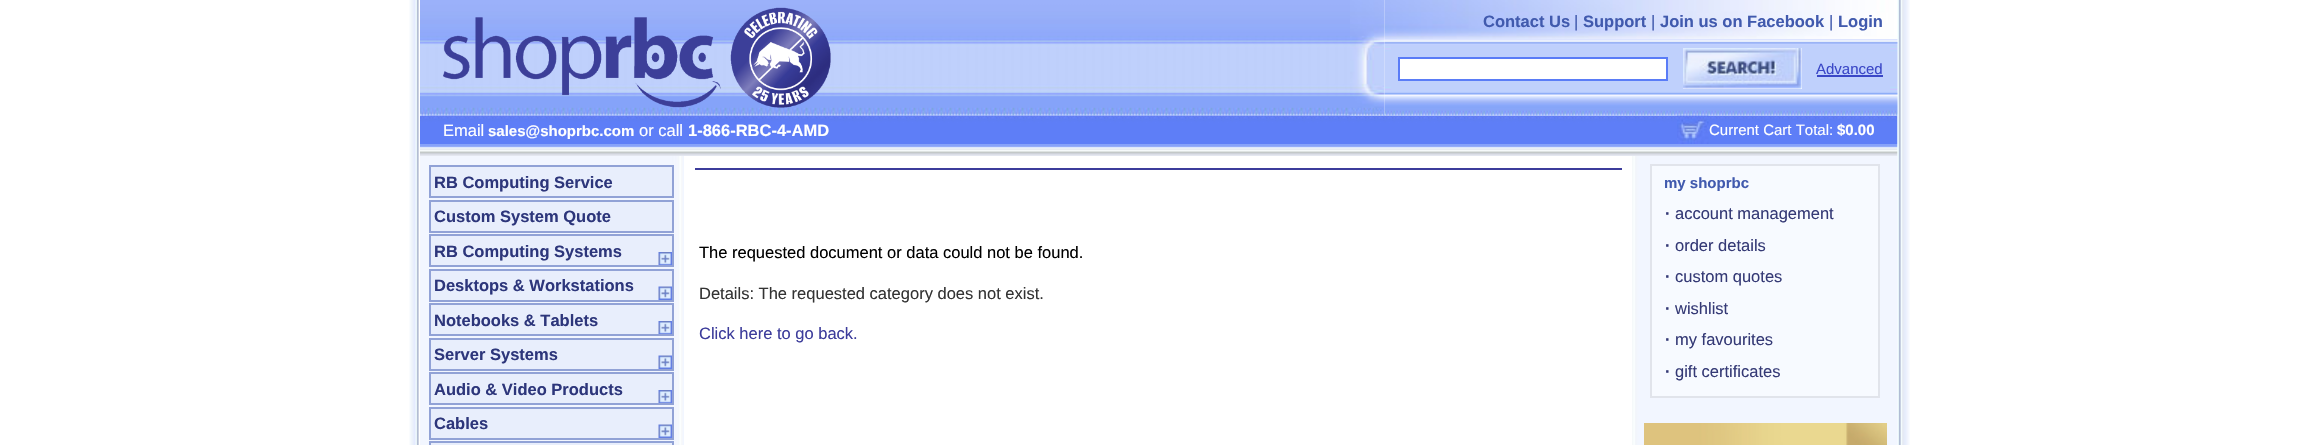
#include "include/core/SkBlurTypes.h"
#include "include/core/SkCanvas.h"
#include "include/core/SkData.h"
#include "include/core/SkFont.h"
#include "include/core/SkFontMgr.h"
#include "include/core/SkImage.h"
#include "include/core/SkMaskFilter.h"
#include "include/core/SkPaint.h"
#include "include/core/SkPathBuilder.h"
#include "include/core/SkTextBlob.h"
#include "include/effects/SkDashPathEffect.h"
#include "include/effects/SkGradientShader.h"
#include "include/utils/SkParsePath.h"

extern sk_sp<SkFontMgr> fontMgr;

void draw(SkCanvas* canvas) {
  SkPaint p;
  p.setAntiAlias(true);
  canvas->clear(SK_ColorWHITE);
  canvas->drawImageRect(SkImages::DeferredFromEncodedData(SkData::MakeFromFileName("images/1.png")), SkRect::MakeLTRB(409, 0, 419, 445), SkSamplingOptions());
  canvas->drawImageRect(SkImages::DeferredFromEncodedData(SkData::MakeFromFileName("images/2.png")), SkRect::MakeLTRB(420, 0, 1350, 116), SkSamplingOptions());
  canvas->drawImageRect(SkImages::DeferredFromEncodedData(SkData::MakeFromFileName("images/3.png")), SkRect::MakeLTRB(443, 7, 831, 108), SkSamplingOptions());
  canvas->drawImageRect(SkImages::DeferredFromEncodedData(SkData::MakeFromFileName("images/9.png")), SkRect::MakeLTRB(420, 115, 1898, 144), SkSamplingOptions());
  canvas->drawImageRect(SkImages::DeferredFromEncodedData(SkData::MakeFromFileName("images/4.png")), SkRect::MakeLTRB(420, 113, 429, 116), SkSamplingOptions());
  canvas->drawImageRect(SkImages::DeferredFromEncodedData(SkData::MakeFromFileName("images/6.png")), SkRect::MakeLTRB(1384, 0, 1898, 39), SkSamplingOptions());
  canvas->drawImageRect(SkImages::DeferredFromEncodedData(SkData::MakeFromFileName("images/5.png")), SkRect::MakeLTRB(1350, 0, 1385, 116), SkSamplingOptions());
  canvas->drawImageRect(SkImages::DeferredFromEncodedData(SkData::MakeFromFileName("images/10.png")), SkRect::MakeLTRB(1677, 115, 1709, 144), SkSamplingOptions());
  canvas->drawImageRect(SkImages::DeferredFromEncodedData(SkData::MakeFromFileName("images/11.png")), SkRect::MakeLTRB(420, 144, 1898, 156), SkSamplingOptions());
  canvas->drawImageRect(SkImages::DeferredFromEncodedData(SkData::MakeFromFileName("images/17.png")), SkRect::MakeLTRB(1897, 0, 1910, 445), SkSamplingOptions());
  canvas->drawImageRect(SkImages::DeferredFromEncodedData(SkData::MakeFromFileName("images/7.png")), SkRect::MakeLTRB(1384, 39, 1898, 116), SkSamplingOptions());
  p.setColor(SkColorSetRGB(191, 208, 252));
  canvas->drawRect(SkRect::MakeLTRB(1391, 46, 1890, 90), p);
  p.setColor(SK_ColorWHITE);
  canvas->drawRect(SkRect::MakeLTRB(1399, 58, 1667, 80), p);
  p.setStyle(SkPaint::kStroke_Style);
  p.setStrokeWidth(2);
  p.setColor(SkColorSetRGB(90, 124, 247));
  canvas->drawRect(SkRect::MakeLTRB(1399, 58, 1667, 80), p);
  p.setStyle(SkPaint::kFill_Style);
  p.setColor(SK_ColorWHITE);
  canvas->drawRect(SkRect::MakeLTRB(1683, 48, 1802, 89), p);
  canvas->drawImageRect(SkImages::DeferredFromEncodedData(SkData::MakeFromFileName("images/8.png")), SkRect::MakeLTRB(1683, 48, 1802, 89), SkSamplingOptions());
  p.setColor(SkColorSetRGB(58, 71, 199));
  canvas->drawRect(SkRect::MakeLTRB(1817, 75, 1883, 77), p);
  canvas->drawImageRect(SkImages::DeferredFromEncodedData(SkData::MakeFromFileName("images/12.png")), SkRect::MakeLTRB(420, 156, 684, 445), SkSamplingOptions());
  p.setColor(SkColorSetRGB(232, 238, 252));
  canvas->drawRect(SkRect::MakeLTRB(430, 166, 673, 197), p);
  p.setStyle(SkPaint::kStroke_Style);
  p.setColor(SkColorSetRGB(145, 162, 214));
  canvas->drawRect(SkRect::MakeLTRB(430, 166, 673, 197), p);
  p.setStyle(SkPaint::kFill_Style);
  p.setColor(SkColorSetRGB(232, 238, 252));
  canvas->drawRect(SkRect::MakeLTRB(430, 201, 673, 232), p);
  p.setStyle(SkPaint::kStroke_Style);
  p.setColor(SkColorSetRGB(145, 162, 214));
  canvas->drawRect(SkRect::MakeLTRB(430, 201, 673, 232), p);
  p.setStyle(SkPaint::kFill_Style);
  p.setColor(SkColorSetRGB(232, 238, 252));
  canvas->drawRect(SkRect::MakeLTRB(431, 236, 672, 265), p);
  canvas->drawImageRect(SkImages::DeferredFromEncodedData(SkData::MakeFromFileName("images/13.png")), SkRect::MakeLTRB(658, 252, 672, 265), SkSamplingOptions());
  p.setStyle(SkPaint::kStroke_Style);
  p.setColor(SkColorSetRGB(145, 162, 214));
  canvas->drawRect(SkRect::MakeLTRB(430, 235, 673, 266), p);
  p.setStyle(SkPaint::kFill_Style);
  p.setColor(SkColorSetRGB(232, 238, 252));
  canvas->drawRect(SkRect::MakeLTRB(431, 271, 672, 300), p);
  canvas->drawImageRect(SkImages::DeferredFromEncodedData(SkData::MakeFromFileName("images/14.png")), SkRect::MakeLTRB(658, 286, 672, 300), SkSamplingOptions());
  p.setStyle(SkPaint::kStroke_Style);
  p.setColor(SkColorSetRGB(145, 162, 214));
  canvas->drawRect(SkRect::MakeLTRB(430, 270, 673, 301), p);
  p.setStyle(SkPaint::kFill_Style);
  p.setColor(SkColorSetRGB(232, 238, 252));
  canvas->drawRect(SkRect::MakeLTRB(431, 305, 672, 334), p);
  canvas->drawImageRect(SkImages::DeferredFromEncodedData(SkData::MakeFromFileName("images/13.png")), SkRect::MakeLTRB(658, 321, 672, 334), SkSamplingOptions());
  p.setStyle(SkPaint::kStroke_Style);
  p.setColor(SkColorSetRGB(145, 162, 214));
  canvas->drawRect(SkRect::MakeLTRB(430, 304, 673, 335), p);
  p.setStyle(SkPaint::kFill_Style);
  p.setColor(SkColorSetRGB(232, 238, 252));
  canvas->drawRect(SkRect::MakeLTRB(431, 340, 672, 369), p);
  canvas->drawImageRect(SkImages::DeferredFromEncodedData(SkData::MakeFromFileName("images/14.png")), SkRect::MakeLTRB(658, 355, 672, 369), SkSamplingOptions());
  p.setStyle(SkPaint::kStroke_Style);
  p.setColor(SkColorSetRGB(145, 162, 214));
  canvas->drawRect(SkRect::MakeLTRB(430, 339, 673, 370), p);
  p.setStyle(SkPaint::kFill_Style);
  p.setColor(SkColorSetRGB(232, 238, 252));
  canvas->drawRect(SkRect::MakeLTRB(431, 374, 672, 403), p);
  canvas->drawImageRect(SkImages::DeferredFromEncodedData(SkData::MakeFromFileName("images/13.png")), SkRect::MakeLTRB(658, 390, 672, 403), SkSamplingOptions());
  p.setStyle(SkPaint::kStroke_Style);
  p.setColor(SkColorSetRGB(145, 162, 214));
  canvas->drawRect(SkRect::MakeLTRB(430, 373, 673, 404), p);
  p.setStyle(SkPaint::kFill_Style);
  p.setColor(SkColorSetRGB(232, 238, 252));
  canvas->drawRect(SkRect::MakeLTRB(431, 409, 672, 438), p);
  canvas->drawImageRect(SkImages::DeferredFromEncodedData(SkData::MakeFromFileName("images/14.png")), SkRect::MakeLTRB(658, 424, 672, 438), SkSamplingOptions());
  p.setStyle(SkPaint::kStroke_Style);
  p.setColor(SkColorSetRGB(145, 162, 214));
  canvas->drawRect(SkRect::MakeLTRB(430, 408, 673, 439), p);
  p.setStyle(SkPaint::kFill_Style);
  p.setColor(SkColorSetRGB(232, 238, 252));
  canvas->drawRect(SkRect::MakeLTRB(430, 442, 673, 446), p);
  p.setStyle(SkPaint::kStroke_Style);
  p.setColor(SkColorSetRGB(145, 162, 214));
  canvas->drawRect(SkRect::MakeLTRB(430, 442, 673, 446), p);
  p.setStyle(SkPaint::kFill_Style);
  p.setColor(SkColorSetRGB(60, 60, 155));
  canvas->drawRect(SkRect::MakeLTRB(695, 168, 1622, 170), p);
  canvas->drawImageRect(SkImages::DeferredFromEncodedData(SkData::MakeFromFileName("images/15.png")), SkRect::MakeLTRB(1632, 156, 1898, 445), SkSamplingOptions());
  p.setColor(SkColorSetRGB(247, 250, 255));
  canvas->drawRect(SkRect::MakeLTRB(1651, 165, 1879, 397), p);
  p.setStyle(SkPaint::kStroke_Style);
  p.setColor(SkColorSetRGB(225, 228, 235));
  canvas->drawRect(SkRect::MakeLTRB(1651, 165, 1879, 397), p);
  canvas->drawImageRect(SkImages::DeferredFromEncodedData(SkData::MakeFromFileName("images/16.png")), SkRect::MakeLTRB(1644, 423, 1887, 445), SkSamplingOptions());
  SkFont font1(fontMgr->matchFamilyStyle("Liberation Sans", SkFontStyle::Bold()), 16.5f);
  font1.setSubpixel(true);
  p.setStyle(SkPaint::kFill_Style);
  p.setColor(SkColorSetRGB(65, 90, 174));
  canvas->drawString("Contact Us", 1483, 27, font1, p);
  SkFont font2(fontMgr->matchFamilyStyle("Liberation Sans", SkFontStyle::Normal()), 16.5f);
  font2.setSubpixel(true);
  canvas->drawString("|", 1574, 27, font2, p);
  canvas->drawString("Support", 1583, 27, font1, p);
  canvas->drawString("|", 1651, 27, font2, p);
  canvas->drawString("Join us on Facebook", 1660, 27, font1, p);
  canvas->drawString("|", 1829, 27, font2, p);
  canvas->drawString("Login", 1838, 27, font1, p);
  SkFont font3(fontMgr->matchFamilyStyle("Liberation Sans", SkFontStyle::Normal()), 15);
  font3.setSubpixel(true);
  p.setColor(SkColorSetRGB(58, 71, 199));
  canvas->drawString("Advanced", 1816, 74, font3, p);
  p.setColor(SK_ColorWHITE);
  canvas->drawString("Email", 443, 136, font2, p);
  SkFont font4(fontMgr->matchFamilyStyle("Liberation Sans", SkFontStyle::Bold()), 15);
  font4.setSubpixel(true);
  canvas->drawString("sales@shoprbc.com", 488, 136, font4, p);
  canvas->drawString("or call", 639, 136, font2, p);
  canvas->drawString("1-866-RBC-4-AMD", 688, 136, font1, p);
  canvas->drawString("Current Cart Total:", 1709, 135, font3, p);
  canvas->drawString("$0.00", 1837, 135, font4, p);
  p.setColor(SkColorSetRGB(45, 54, 123));
  canvas->drawString("RB Computing Service", 434, 188, font1, p);
  canvas->drawString("Custom System Quote", 434, 222, font1, p);
  canvas->drawString("RB Computing Systems", 434, 257, font1, p);
  canvas->drawString("Desktops & Workstations", 434, 291, font1, p);
  canvas->drawString("Notebooks & Tablets", 434, 326, font1, p);
  canvas->drawString("Server Systems", 434, 360, font1, p);
  canvas->drawString("Audio & Video Products", 434, 395, font1, p);
  canvas->drawString("Cables", 434, 429, font1, p);
  p.setColor(SK_ColorBLACK);
  canvas->drawString("The requested document or data could not be found.", 699, 258, font2, p);
  p.setColor(SkColorSetRGB(51, 51, 51));
  canvas->drawString("Details: The requested category does not exist.", 699, 299, font2, p);
  p.setColor(SkColorSetRGB(60, 60, 155));
  canvas->drawString("Click here to go back.", 699, 339, font2, p);
  p.setColor(SkColorSetRGB(65, 90, 174));
  canvas->drawString("my shoprbc", 1664, 188, font4, p);
  p.setColor(SkColorSetRGB(53, 58, 118));
  canvas->drawString("·", 1665, 219, font1, p);
  canvas->drawString("account management", 1675, 219, font2, p);
  canvas->drawString("·", 1665, 251, font1, p);
  canvas->drawString("order details", 1675, 251, font2, p);
  canvas->drawString("·", 1665, 282, font1, p);
  canvas->drawString("custom quotes", 1675, 282, font2, p);
  canvas->drawString("·", 1665, 314, font1, p);
  canvas->drawString("wishlist", 1675, 314, font2, p);
  canvas->drawString("·", 1665, 345, font1, p);
  canvas->drawString("my favourites", 1675, 345, font2, p);
  canvas->drawString("·", 1665, 377, font1, p);
  canvas->drawString("gift certificates", 1675, 377, font2, p);
}
